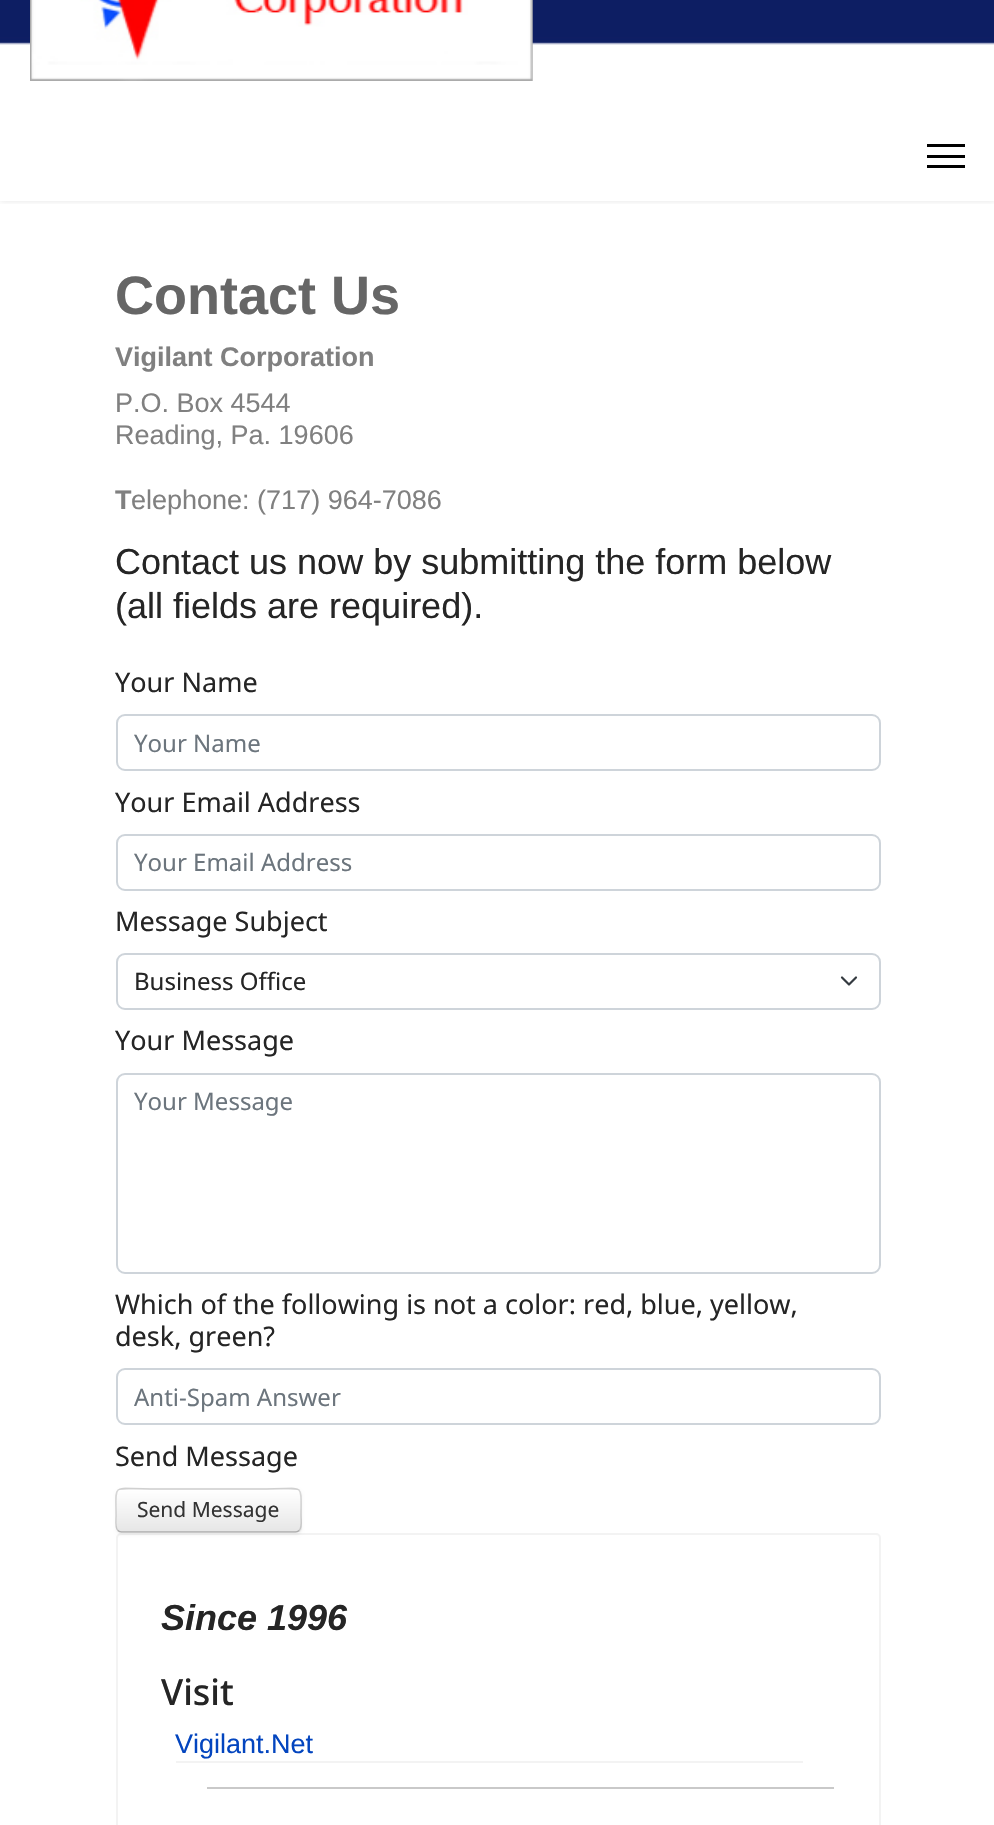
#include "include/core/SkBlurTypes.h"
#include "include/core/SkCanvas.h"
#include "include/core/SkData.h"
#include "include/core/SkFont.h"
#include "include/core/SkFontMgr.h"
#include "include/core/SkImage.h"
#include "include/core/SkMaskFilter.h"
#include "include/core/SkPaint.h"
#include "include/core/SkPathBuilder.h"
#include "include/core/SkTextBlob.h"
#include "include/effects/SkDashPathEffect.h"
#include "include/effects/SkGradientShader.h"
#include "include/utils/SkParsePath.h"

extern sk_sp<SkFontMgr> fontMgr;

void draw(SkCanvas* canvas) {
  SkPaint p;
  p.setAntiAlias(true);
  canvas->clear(SK_ColorWHITE);
  canvas->save();
  canvas->clipRect(SkRect::MakeLTRB(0, 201, 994, 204));
  p.setColor(SkColorSetARGB(26, 0, 0, 0));
  p.setMaskFilter(SkMaskFilter::MakeBlur(kNormal_SkBlurStyle, 3));
  canvas->drawRect(SkRect::MakeLTRB(0, -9, 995, 201), p);
  p.setMaskFilter(nullptr);
  canvas->restore();
  canvas->drawImageRect(SkImages::DeferredFromEncodedData(SkData::MakeFromFileName("images/1.png")), SkRect::MakeLTRB(0, 0, 994, 45), SkSamplingOptions());
  canvas->drawImageRect(SkImages::DeferredFromEncodedData(SkData::MakeFromFileName("images/2.png")), SkRect::MakeLTRB(30, 0, 533, 81), SkSamplingOptions());
  canvas->drawImageRect(SkImages::DeferredFromEncodedData(SkData::MakeFromFileName("images/3.png")), SkRect::MakeLTRB(32, 0, 533, 81), SkSamplingOptions());
  p.setColor(SK_ColorBLACK);
  canvas->drawRect(SkRect::MakeLTRB(927, 144, 965, 147), p);
  canvas->drawRect(SkRect::MakeLTRB(927, 155, 965, 158), p);
  canvas->drawRect(SkRect::MakeLTRB(927, 165, 965, 168), p);
  p.setStyle(SkPaint::kStroke_Style);
  p.setStrokeWidth(2);
  p.setColor(SkColorSetRGB(206, 212, 218));
  canvas->drawRoundRect(SkRect::MakeLTRB(117, 715, 880, 770), 8, 8, p);
  canvas->drawRoundRect(SkRect::MakeLTRB(117, 835, 880, 890), 8, 8, p);
  p.setStrokeWidth(2.2f);
  p.setStrokeCap(SkPaint::kRound_Cap);
  p.setStrokeJoin(SkPaint::kRound_Join);
  p.setColor(SkColorSetRGB(52, 58, 64));
  canvas->drawPath(SkPathBuilder().moveTo(842, 977.5f).lineTo(849, 984.5f).lineTo(856, 977.5f).detach(), p);
  p.setStrokeWidth(2);
  p.setStrokeCap(SkPaint::kButt_Cap);
  p.setStrokeJoin(SkPaint::kMiter_Join);
  p.setColor(SkColorSetRGB(206, 212, 218));
  canvas->drawRoundRect(SkRect::MakeLTRB(117, 954, 880, 1009), 8, 8, p);
  canvas->drawRoundRect(SkRect::MakeLTRB(117, 1074, 880, 1273), 8, 8, p);
  canvas->drawRoundRect(SkRect::MakeLTRB(117, 1369, 880, 1424), 8, 8, p);
  p.setColor(SkColorSetRGB(243, 243, 243));
  canvas->drawRoundRect(SkRect::MakeLTRB(117, 1534, 880, 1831), 4, 4, p);
  p.setStyle(SkPaint::kFill_Style);
  p.setColor(SkColorSetARGB(13, 0, 0, 0));
  p.setMaskFilter(SkMaskFilter::MakeBlur(kNormal_SkBlurStyle, 1.5f));
  canvas->drawRoundRect(SkRect::MakeLTRB(116, 1490, 302, 1535), 6, 6, p);
  p.setMaskFilter(nullptr);
  p.setColor(SkColorSetRGB(245, 245, 245));
  canvas->drawRoundRect(SkRect::MakeLTRB(116, 1488, 302, 1533), 6, 6, p);
  canvas->save();
  canvas->clipPath(SkPathBuilder().moveTo(122, 1488).lineTo(296, 1488).cubicTo(299.5f, 1488, 302, 1490.5f, 302, 1494).lineTo(302, 1527).cubicTo(302, 1530.5f, 299.5f, 1533, 296, 1533).lineTo(122, 1533).cubicTo(118.5f, 1533, 116, 1530.5f, 116, 1527).lineTo(116, 1494).cubicTo(116, 1490.5f, 118.5f, 1488, 122, 1488).close().detach(), true);
  {
    const SkColor colors[] = {SK_ColorWHITE, SkColorSetRGB(230, 230, 230)};
    const float stops[] = {0, 1};
    const SkPoint ends[] = {{209, 1490}, {209, 1532}};
    p.setShader(SkGradientShader::MakeLinear(ends, colors, stops, 2, SkTileMode::kClamp));
    p.setAlpha(255);
  }
  canvas->drawRect(SkRect::MakeLTRB(116, 1490, 302, 1532), p);
  canvas->restore();
  p.setStyle(SkPaint::kStroke_Style);
  p.setStrokeWidth(1.5f);
  p.setShader(nullptr);
  p.setColor(SkColorSetARGB(64, 0, 0, 0));
  canvas->drawPath(SkPathBuilder().moveTo(299, 1530.5f).cubicTo(298, 1531.5f, 297, 1532, 295.5f, 1532).lineTo(121.5f, 1532).cubicTo(120, 1532, 119, 1531.5f, 118, 1530.5f).detach(), p);
  p.setColor(SkColorSetARGB(38, 0, 0, 0));
  canvas->drawPath(SkPathBuilder().moveTo(118, 1530.5f).cubicTo(114.5f, 1527.5f, 116, 1519.5f, 116, 1516).cubicTo(116, 1481.5f, 111.5f, 1489, 150.5f, 1489).lineTo(266.5f, 1489).cubicTo(305.5f, 1489, 301, 1481.5f, 301, 1516).cubicTo(301, 1519.5f, 302.5f, 1527.5f, 299, 1530.5f).detach(), p);
  p.setStyle(SkPaint::kFill_Style);
  p.setColor(SkColorSetRGB(243, 243, 243));
  canvas->drawRect(SkRect::MakeLTRB(176, 1761, 803, 1763), p);
  p.setColor(SkColorSetRGB(201, 201, 201));
  canvas->drawRect(SkRect::MakeLTRB(207, 1787, 834, 1789), p);
  SkFont font1(fontMgr->matchFamilyStyle("Liberation Sans", SkFontStyle::Bold()), 54);
  font1.setSubpixel(true);
  p.setColor(SkColorSetRGB(102, 102, 102));
  canvas->drawString("Contact Us", 115, 314, font1, p);
  SkFont font2(fontMgr->matchFamilyStyle("Liberation Sans", SkFontStyle::Bold()), 27);
  font2.setSubpixel(true);
  p.setColor(SkColorSetRGB(128, 128, 128));
  canvas->drawString("Vigilant Corporation", 115, 366, font2, p);
  SkFont font3(fontMgr->matchFamilyStyle("Liberation Sans", SkFontStyle::Normal()), 27);
  font3.setSubpixel(true);
  canvas->drawString("P.O. Box 4544", 115, 412, font3, p);
  canvas->drawString("Reading, Pa. 19606", 115, 444, font3, p);
  canvas->drawString("T", 115, 509, font2, p);
  canvas->drawString("elephone: (717) 964-7086", 131, 509, font3, p);
  SkFont font4(fontMgr->matchFamilyStyle("Liberation Sans", SkFontStyle::Normal()), 36);
  font4.setSubpixel(true);
  p.setColor(SkColorSetRGB(37, 37, 37));
  canvas->drawString("Contact us now by submitting the form below", 115, 574, font4, p);
  canvas->drawString("(all fields are required).", 115, 618, font4, p);
  SkFont font5(fontMgr->matchFamilyStyle("Noto Sans", SkFontStyle::Normal()), 27);
  font5.setSubpixel(true);
  canvas->drawString("Your Name", 115, 692, font5, p);
  SkFont font6(fontMgr->matchFamilyStyle("Noto Sans", SkFontStyle::Normal()), 24);
  font6.setSubpixel(true);
  p.setColor(SkColorSetRGB(108, 117, 125));
  canvas->drawString("Your Name", 134, 752, font6, p);
  p.setColor(SkColorSetRGB(37, 37, 37));
  canvas->drawString("Your Email Address", 115, 812, font5, p);
  p.setColor(SkColorSetRGB(108, 117, 125));
  canvas->drawString("Your Email Address", 134, 871, font6, p);
  p.setColor(SkColorSetRGB(37, 37, 37));
  canvas->drawString("Message Subject", 115, 931, font5, p);
  canvas->drawString("Business Office", 134, 990, font6, p);
  canvas->drawString("Your Message", 115, 1050, font5, p);
  p.setColor(SkColorSetRGB(108, 117, 125));
  canvas->drawString("Your Message", 134, 1110, font6, p);
  p.setColor(SkColorSetRGB(37, 37, 37));
  canvas->drawString("Which of the following is not a color: red, blue, yellow,", 115, 1314, font5, p);
  canvas->drawString("desk, green?", 115, 1346, font5, p);
  p.setColor(SkColorSetRGB(108, 117, 125));
  canvas->drawString("Anti-Spam Answer", 134, 1406, font6, p);
  p.setColor(SkColorSetRGB(37, 37, 37));
  canvas->drawString("Send Message", 115, 1466, font5, p);
  SkFont font7(fontMgr->matchFamilyStyle("Noto Sans", SkFontStyle::Normal()), 21);
  font7.setSubpixel(true);
  p.setColor(SkColorSetRGB(51, 51, 51));
  canvas->drawString("Send Message", 137, 1517, font7, p);
  SkFont font8(fontMgr->matchFamilyStyle("Liberation Sans", SkFontStyle::BoldItalic()), 36);
  font8.setSubpixel(true);
  p.setColor(SkColorSetRGB(37, 37, 37));
  canvas->drawString("Since 1996", 161, 1630, font8, p);
  SkFont font9(fontMgr->matchFamilyStyle("Noto Sans", SkFontStyle(500, SkFontStyle::kNormal_Width, SkFontStyle::kUpright_Slant)), 36);
  font9.setSubpixel(true);
  canvas->drawString("Visit", 161, 1705, font9, p);
  p.setColor(SkColorSetRGB(3, 69, 191));
  canvas->drawString("Vigilant.Net", 175, 1753, font3, p);
}
